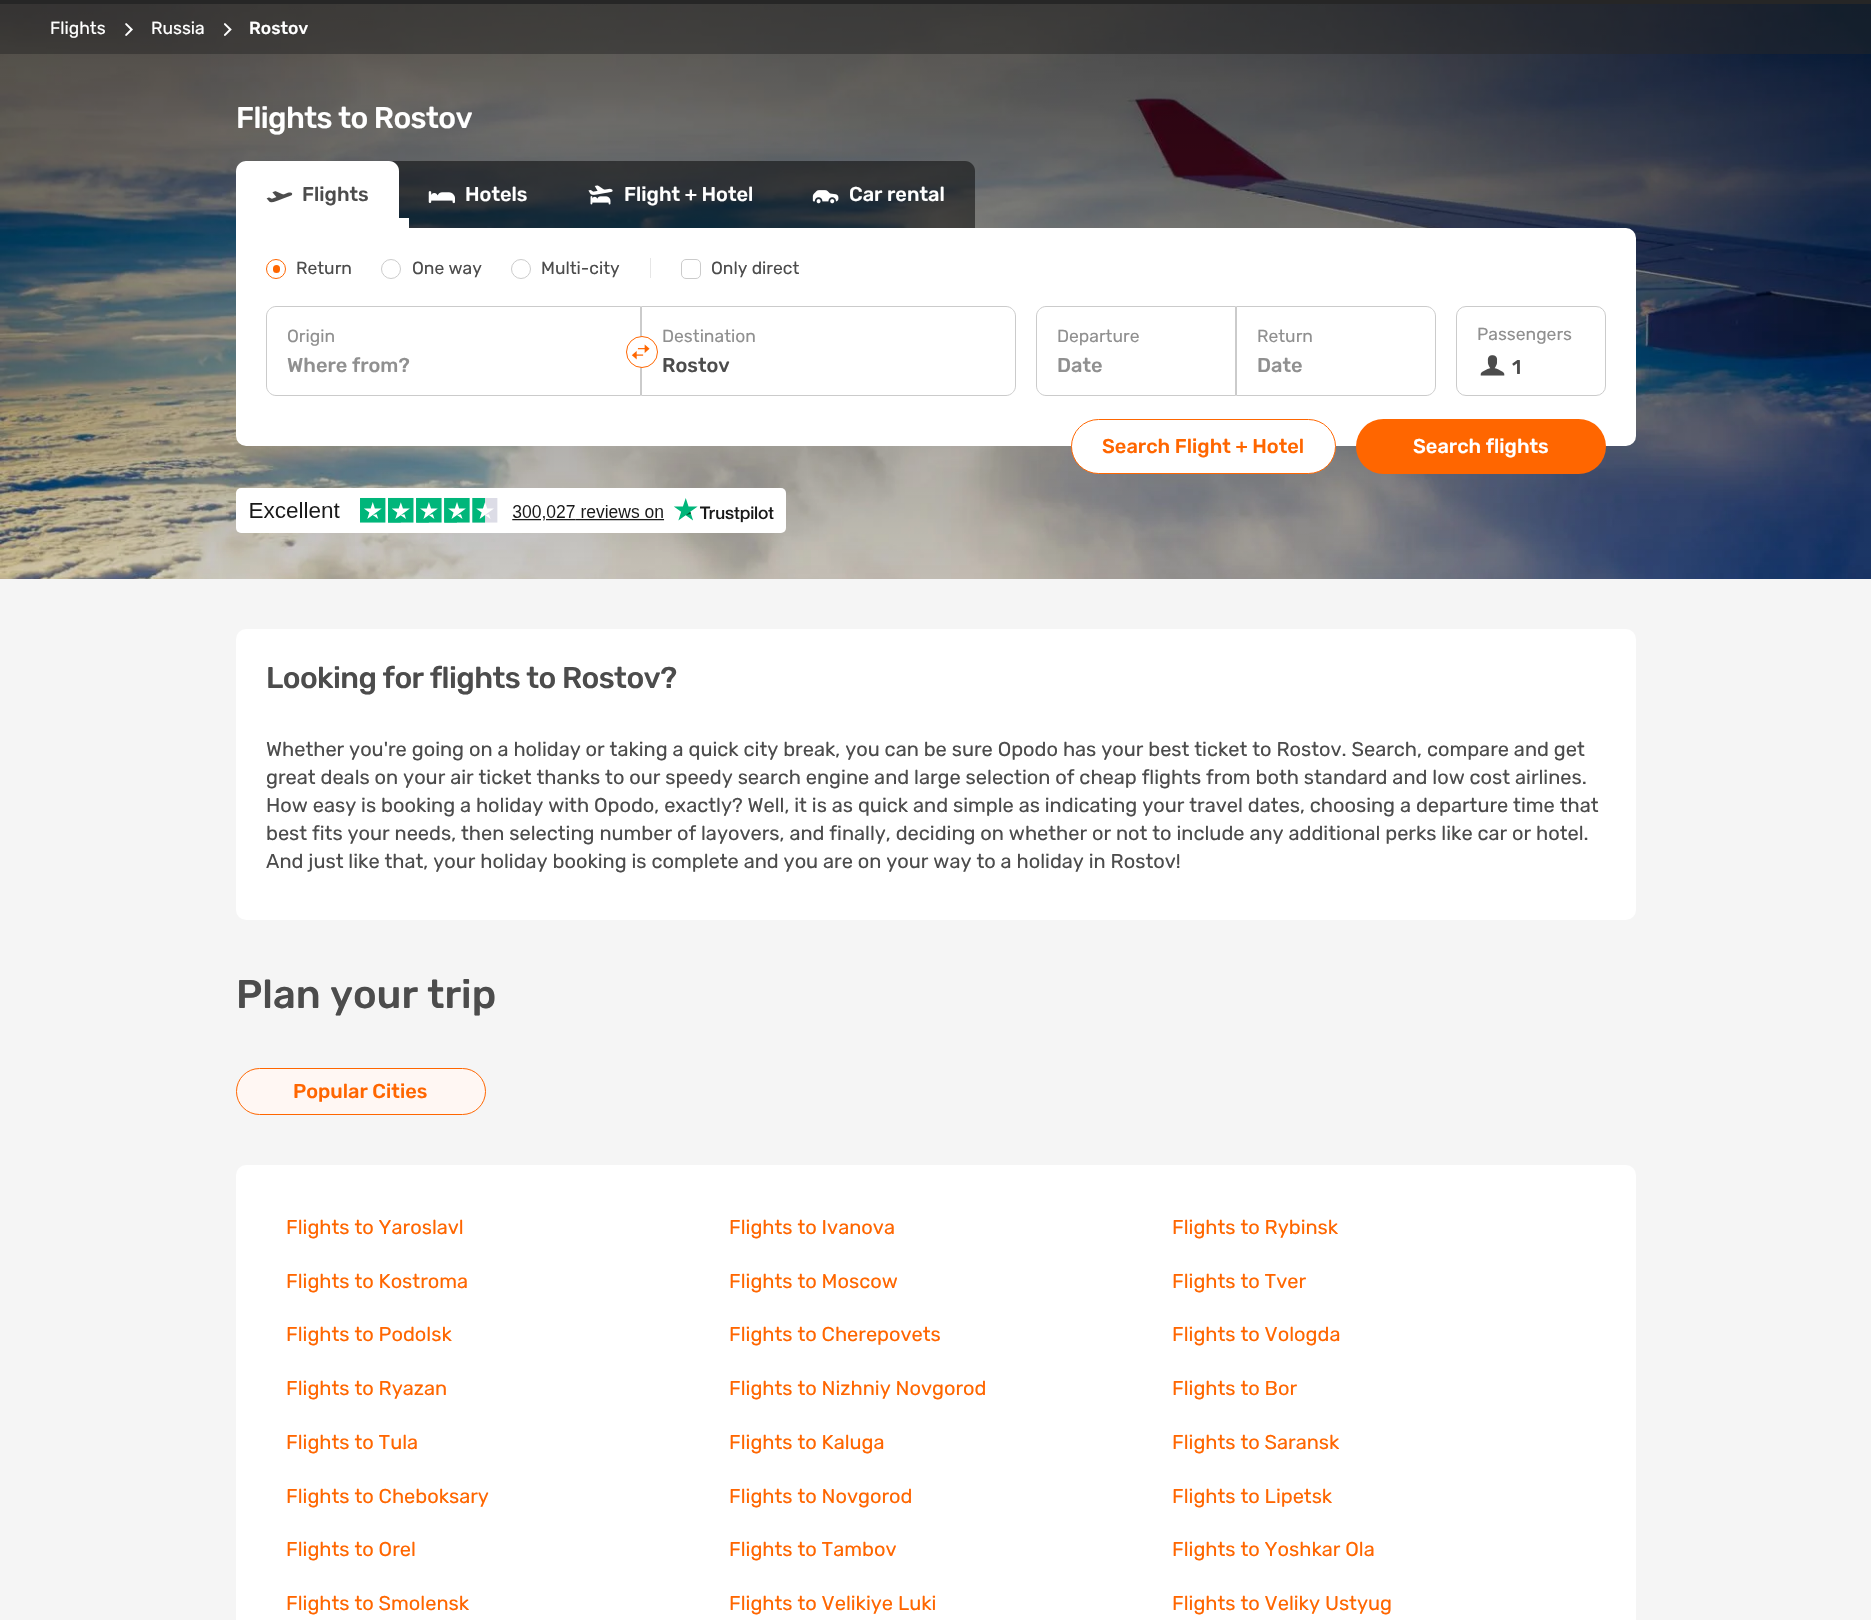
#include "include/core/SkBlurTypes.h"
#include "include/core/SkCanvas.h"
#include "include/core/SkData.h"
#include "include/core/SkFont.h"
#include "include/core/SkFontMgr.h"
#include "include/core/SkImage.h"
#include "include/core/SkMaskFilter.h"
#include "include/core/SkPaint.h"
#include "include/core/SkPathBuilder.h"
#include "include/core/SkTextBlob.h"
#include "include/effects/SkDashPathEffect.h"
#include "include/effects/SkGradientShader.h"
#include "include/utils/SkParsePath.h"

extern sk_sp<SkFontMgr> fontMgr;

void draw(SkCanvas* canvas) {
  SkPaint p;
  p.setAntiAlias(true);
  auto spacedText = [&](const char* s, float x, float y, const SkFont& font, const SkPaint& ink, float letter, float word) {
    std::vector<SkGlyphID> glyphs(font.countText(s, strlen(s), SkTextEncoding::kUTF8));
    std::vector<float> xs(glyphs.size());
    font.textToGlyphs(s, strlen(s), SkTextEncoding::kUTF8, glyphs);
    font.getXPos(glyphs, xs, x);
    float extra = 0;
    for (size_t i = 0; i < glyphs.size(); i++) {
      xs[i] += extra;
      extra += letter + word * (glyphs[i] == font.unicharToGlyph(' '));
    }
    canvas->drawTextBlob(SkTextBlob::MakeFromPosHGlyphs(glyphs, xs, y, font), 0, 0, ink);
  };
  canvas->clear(SkColorSetRGB(245, 245, 245));
  p.setColor(SkColorSetRGB(38, 38, 38));
  canvas->drawRect(SkRect::MakeLTRB(0, 0, 1871, 4), p);
  canvas->drawImageRect(SkImages::DeferredFromEncodedData(SkData::MakeFromFileName("images/1.png")), SkRect::MakeLTRB(0, 4, 1871, 579), SkSamplingOptions());
  p.setColor(SkColorSetARGB(128, 38, 38, 38));
  canvas->drawRect(SkRect::MakeLTRB(0, 4, 1871, 54), p);
  canvas->drawImageRect(SkImages::DeferredFromEncodedData(SkData::MakeFromFileName("images/2.png")), SkRect::MakeLTRB(125, 23, 133, 36), SkSamplingOptions());
  canvas->drawImageRect(SkImages::DeferredFromEncodedData(SkData::MakeFromFileName("images/3.png")), SkRect::MakeLTRB(224, 23, 232, 36), SkSamplingOptions());
  p.setColor(SkColorSetARGB(128, 0, 0, 0));
  canvas->drawPath(SkPathBuilder().moveTo(246, 161).lineTo(965, 161).cubicTo(970.5f, 161, 975, 165.5f, 975, 171).lineTo(975, 238).lineTo(236, 238).lineTo(236, 171).cubicTo(236, 165.5f, 240.5f, 161, 246, 161).close().detach(), p);
  p.setColor(SK_ColorWHITE);
  canvas->drawPath(SkPathBuilder().moveTo(246, 161).lineTo(389, 161).cubicTo(394.5f, 161, 399, 165.5f, 399, 171).lineTo(399, 238).lineTo(236, 238).lineTo(236, 171).cubicTo(236, 165.5f, 240.5f, 161, 246, 161).close().detach(), p);
  canvas->drawImageRect(SkImages::DeferredFromEncodedData(SkData::MakeFromFileName("images/4.png")), SkRect::MakeLTRB(266, 191, 293, 203), SkSamplingOptions());
  canvas->drawRect(SkRect::MakeLTRB(399, 218, 409, 228), p);
  canvas->drawImageRect(SkImages::DeferredFromEncodedData(SkData::MakeFromFileName("images/5.png")), SkRect::MakeLTRB(428, 191, 455, 204), SkSamplingOptions());
  canvas->drawImageRect(SkImages::DeferredFromEncodedData(SkData::MakeFromFileName("images/6.png")), SkRect::MakeLTRB(588, 185, 613, 205), SkSamplingOptions());
  canvas->drawImageRect(SkImages::DeferredFromEncodedData(SkData::MakeFromFileName("images/7.png")), SkRect::MakeLTRB(812, 190, 839, 204), SkSamplingOptions());
  canvas->drawRoundRect(SkRect::MakeLTRB(236, 228, 1636, 446), 10, 10, p);
  p.setStyle(SkPaint::kStroke_Style);
  p.setStrokeWidth(1);
  p.setColor(SkColorSetRGB(255, 102, 0));
  canvas->drawCircle(276, 269, 9.5f, p);
  p.setStyle(SkPaint::kFill_Style);
  canvas->drawRoundRect(SkRect::MakeLTRB(273, 265, 280, 273), 3.5f, 3.5f, p);
  p.setStyle(SkPaint::kStroke_Style);
  p.setColor(SkColorSetRGB(203, 203, 203));
  canvas->drawCircle(391, 269, 9.5f, p);
  canvas->drawCircle(521, 269, 9.5f, p);
  p.setStyle(SkPaint::kFill_Style);
  p.setColor(SkColorSetRGB(230, 230, 230));
  canvas->drawRect(SkRect::MakeLTRB(650, 258, 651, 278), p);
  p.setStyle(SkPaint::kStroke_Style);
  p.setColor(SkColorSetRGB(203, 203, 203));
  canvas->drawRoundRect(SkRect::MakeLTRB(681.5f, 259.5f, 700.5f, 278.5f), 4.5f, 4.5f, p);
  canvas->drawPath(SkPathBuilder().moveTo(276, 306.5f).lineTo(640.5f, 306.5f).lineTo(640.5f, 395.5f).lineTo(276, 395.5f).cubicTo(271, 395.5f, 266.5f, 391, 266.5f, 386).lineTo(266.5f, 316).cubicTo(266.5f, 311, 271, 306.5f, 276, 306.5f).close().detach(), p);
  canvas->drawPath(SkPathBuilder().moveTo(641.5f, 306.5f).lineTo(1006, 306.5f).cubicTo(1011, 306.5f, 1015.5f, 311, 1015.5f, 316).lineTo(1015.5f, 386).cubicTo(1015.5f, 391, 1011, 395.5f, 1006, 395.5f).lineTo(641.5f, 395.5f).close().detach(), p);
  p.setStyle(SkPaint::kFill_Style);
  p.setColor(SK_ColorWHITE);
  canvas->drawCircle(642, 352, 15.5f, p);
  p.setStyle(SkPaint::kStroke_Style);
  p.setColor(SkColorSetRGB(255, 102, 0));
  canvas->drawCircle(642, 352, 15.5f, p);
  canvas->drawImageRect(SkImages::DeferredFromEncodedData(SkData::MakeFromFileName("images/8.png")), SkRect::MakeLTRB(631, 344, 650, 360), SkSamplingOptions());
  p.setColor(SkColorSetRGB(203, 203, 203));
  canvas->drawPath(SkPathBuilder().moveTo(1046, 306.5f).lineTo(1235.5f, 306.5f).lineTo(1235.5f, 395.5f).lineTo(1046, 395.5f).cubicTo(1041, 395.5f, 1036.5f, 391, 1036.5f, 386).lineTo(1036.5f, 316).cubicTo(1036.5f, 311, 1041, 306.5f, 1046, 306.5f).close().detach(), p);
  canvas->drawPath(SkPathBuilder().moveTo(1236.5f, 306.5f).lineTo(1426, 306.5f).cubicTo(1431, 306.5f, 1435.5f, 311, 1435.5f, 316).lineTo(1435.5f, 386).cubicTo(1435.5f, 391, 1431, 395.5f, 1426, 395.5f).lineTo(1236.5f, 395.5f).close().detach(), p);
  canvas->drawRoundRect(SkRect::MakeLTRB(1456.5f, 306.5f, 1605.5f, 395.5f), 9.5f, 9.5f, p);
  canvas->drawImageRect(SkImages::DeferredFromEncodedData(SkData::MakeFromFileName("images/9.png")), SkRect::MakeLTRB(1480, 355, 1505, 376), SkSamplingOptions());
  p.setStyle(SkPaint::kFill_Style);
  p.setColor(SK_ColorWHITE);
  canvas->drawRoundRect(SkRect::MakeLTRB(1071.5f, 419.5f, 1335.5f, 473.5f), 27, 27, p);
  p.setStyle(SkPaint::kStroke_Style);
  p.setColor(SkColorSetRGB(255, 102, 0));
  canvas->drawRoundRect(SkRect::MakeLTRB(1071.5f, 419.5f, 1335.5f, 473.5f), 27, 27, p);
  p.setStyle(SkPaint::kFill_Style);
  canvas->drawRoundRect(SkRect::MakeLTRB(1356, 419, 1606, 474), 27.5f, 27.5f, p);
  p.setColor(SK_ColorWHITE);
  canvas->drawRoundRect(SkRect::MakeLTRB(236, 488, 786, 533), 5, 5, p);
  canvas->drawImageRect(SkImages::DeferredFromEncodedData(SkData::MakeFromFileName("images/10.png")), SkRect::MakeLTRB(250, 497, 774, 523), SkSamplingOptions());
  canvas->drawRoundRect(SkRect::MakeLTRB(236, 629, 1636, 920), 10, 10, p);
  p.setColor(SkColorSetRGB(255, 247, 243));
  canvas->drawRoundRect(SkRect::MakeLTRB(236.5f, 1068.5f, 485.5f, 1114.5f), 23, 23, p);
  p.setStyle(SkPaint::kStroke_Style);
  p.setColor(SkColorSetRGB(255, 102, 0));
  canvas->drawRoundRect(SkRect::MakeLTRB(236.5f, 1068.5f, 485.5f, 1114.5f), 23, 23, p);
  p.setStyle(SkPaint::kFill_Style);
  p.setColor(SK_ColorWHITE);
  canvas->drawRoundRect(SkRect::MakeLTRB(236, 1165, 1636, 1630), 10, 10, p);
  SkFont font1(fontMgr->matchFamilyStyle("Rubik", SkFontStyle::Normal()), 17.5f);
  font1.setSubpixel(true);
  canvas->drawString("Flights", 50, 34, font1, p);
  canvas->drawString("Russia", 151, 34, font1, p);
  SkFont font2(fontMgr->matchFamilyStyle("Rubik", SkFontStyle(500, SkFontStyle::kNormal_Width, SkFontStyle::kUpright_Slant)), 17.5f);
  font2.setSubpixel(true);
  canvas->drawString("Rostov", 249, 34, font2, p);
  SkFont font3(fontMgr->matchFamilyStyle("Rubik", SkFontStyle(500, SkFontStyle::kNormal_Width, SkFontStyle::kUpright_Slant)), 30);
  font3.setSubpixel(true);
  spacedText("Flights to Rostov", 236, 128, font3, p, -0.6f, 0);
  SkFont font4(fontMgr->matchFamilyStyle("Rubik", SkFontStyle(500, SkFontStyle::kNormal_Width, SkFontStyle::kUpright_Slant)), 20);
  font4.setSubpixel(true);
  p.setColor(SkColorSetRGB(76, 76, 76));
  canvas->drawString("Flights", 302, 201, font4, p);
  p.setColor(SK_ColorWHITE);
  canvas->drawString("Hotels", 465, 201, font4, p);
  canvas->drawString("Flight + Hotel", 624, 201, font4, p);
  canvas->drawString("Car rental", 849, 201, font4, p);
  p.setColor(SkColorSetRGB(76, 76, 76));
  canvas->drawString("Return", 296, 274, font1, p);
  canvas->drawString("One way", 412, 274, font1, p);
  canvas->drawString("Multi-city", 541, 274, font1, p);
  canvas->drawString("Only direct", 711, 274, font1, p);
  p.setColor(SkColorSetRGB(144, 144, 144));
  canvas->drawString("Origin", 287, 342, font1, p);
  canvas->drawString("Where from?", 287, 372, font4, p);
  canvas->drawString("Destination", 662, 342, font1, p);
  p.setColor(SkColorSetRGB(76, 76, 76));
  canvas->drawString("Rostov", 662, 372, font4, p);
  p.setColor(SkColorSetRGB(144, 144, 144));
  canvas->drawString("Departure", 1057, 342, font1, p);
  canvas->drawString("Date", 1057, 372, font4, p);
  canvas->drawString("Return", 1257, 342, font1, p);
  canvas->drawString("Date", 1257, 372, font4, p);
  canvas->drawString("Passengers", 1477, 340, font1, p);
  p.setColor(SkColorSetRGB(76, 76, 76));
  canvas->drawString("1", 1512, 374, font4, p);
  p.setColor(SkColorSetRGB(255, 102, 0));
  canvas->drawString("Search Flight + Hotel", 1102, 453, font4, p);
  p.setColor(SK_ColorWHITE);
  canvas->drawString("Search flights", 1413, 453, font4, p);
  p.setColor(SkColorSetRGB(76, 76, 76));
  spacedText("Looking for flights to Rostov?", 266, 688, font3, p, -0.6f, 0);
  SkFont font5(fontMgr->matchFamilyStyle("Rubik", SkFontStyle::Normal()), 20);
  font5.setSubpixel(true);
  canvas->drawString("Whether you're going on a holiday or taking a quick city break, you can be sure Opodo has your best ticket to Rostov. Search, compare and get", 266, 756, font5, p);
  canvas->drawString("great deals on your air ticket thanks to our speedy search engine and large selection of cheap flights from both standard and low cost airlines.", 266, 784, font5, p);
  canvas->drawString("How easy is booking a holiday with Opodo, exactly? Well, it is as quick and simple as indicating your travel dates, choosing a departure time that", 266, 812, font5, p);
  canvas->drawString("best fits your needs, then selecting number of layovers, and finally, deciding on whether or not to include any additional perks like car or hotel.", 266, 840, font5, p);
  canvas->drawString("And just like that, your holiday booking is complete and you are on your way to a holiday in Rostov!", 266, 868, font5, p);
  SkFont font6(fontMgr->matchFamilyStyle("Rubik", SkFontStyle(500, SkFontStyle::kNormal_Width, SkFontStyle::kUpright_Slant)), 40);
  font6.setSubpixel(true);
  canvas->drawString("Plan your trip", 236, 1008, font6, p);
  p.setColor(SkColorSetRGB(255, 102, 0));
  canvas->drawString("Popular Cities", 293, 1098, font4, p);
  canvas->drawString("Flights to Yaroslavl", 286, 1234, font5, p);
  canvas->drawString("Flights to Ivanova", 729, 1234, font5, p);
  canvas->drawString("Flights to Rybinsk", 1172, 1234, font5, p);
  canvas->drawString("Flights to Kostroma", 286, 1288, font5, p);
  canvas->drawString("Flights to Moscow", 729, 1288, font5, p);
  canvas->drawString("Flights to Tver", 1172, 1288, font5, p);
  canvas->drawString("Flights to Podolsk", 286, 1341, font5, p);
  canvas->drawString("Flights to Cherepovets", 729, 1341, font5, p);
  canvas->drawString("Flights to Vologda", 1172, 1341, font5, p);
  canvas->drawString("Flights to Ryazan", 286, 1395, font5, p);
  canvas->drawString("Flights to Nizhniy Novgorod", 729, 1395, font5, p);
  canvas->drawString("Flights to Bor", 1172, 1395, font5, p);
  canvas->drawString("Flights to Tula", 286, 1449, font5, p);
  canvas->drawString("Flights to Kaluga", 729, 1449, font5, p);
  canvas->drawString("Flights to Saransk", 1172, 1449, font5, p);
  canvas->drawString("Flights to Cheboksary", 286, 1503, font5, p);
  canvas->drawString("Flights to Novgorod", 729, 1503, font5, p);
  canvas->drawString("Flights to Lipetsk", 1172, 1503, font5, p);
  canvas->drawString("Flights to Orel", 286, 1556, font5, p);
  canvas->drawString("Flights to Tambov", 729, 1556, font5, p);
  canvas->drawString("Flights to Yoshkar Ola", 1172, 1556, font5, p);
  canvas->drawString("Flights to Smolensk", 286, 1610, font5, p);
  canvas->drawString("Flights to Velikiye Luki", 729, 1610, font5, p);
  canvas->drawString("Flights to Veliky Ustyug", 1172, 1610, font5, p);
}
